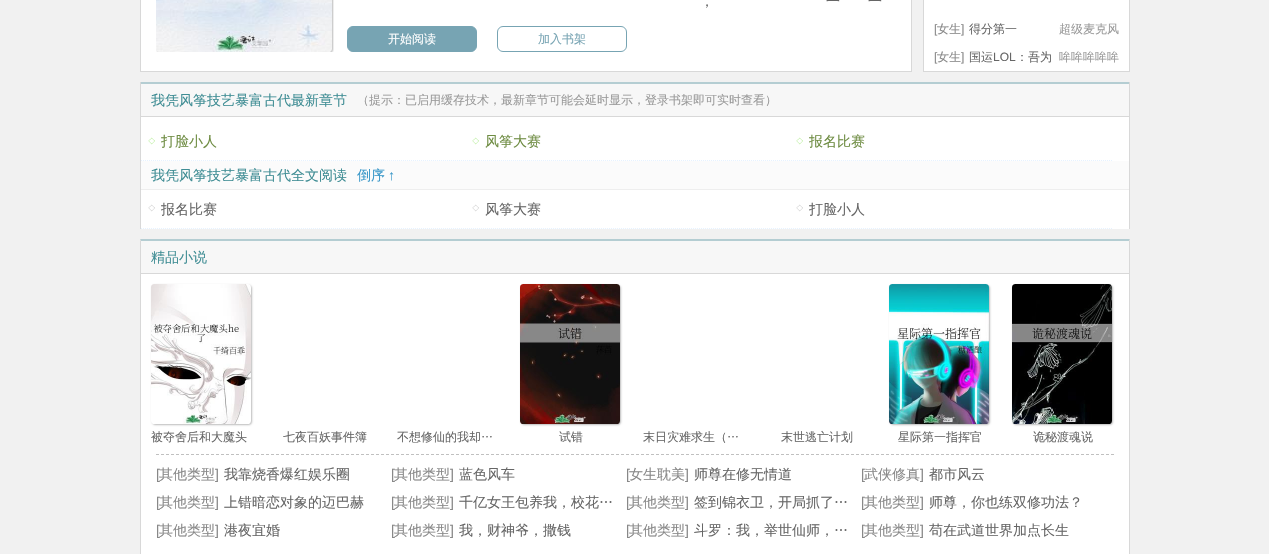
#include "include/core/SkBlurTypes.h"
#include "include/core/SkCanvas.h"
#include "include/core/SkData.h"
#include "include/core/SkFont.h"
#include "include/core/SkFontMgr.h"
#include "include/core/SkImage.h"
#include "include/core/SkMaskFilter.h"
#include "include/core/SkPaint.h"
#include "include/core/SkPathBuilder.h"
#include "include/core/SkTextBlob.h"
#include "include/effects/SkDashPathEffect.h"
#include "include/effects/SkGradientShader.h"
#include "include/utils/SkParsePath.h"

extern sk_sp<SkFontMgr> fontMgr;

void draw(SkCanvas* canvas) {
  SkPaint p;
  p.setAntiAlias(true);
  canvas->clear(SkColorSetRGB(241, 241, 241));
  p.setColor(SK_ColorWHITE);
  canvas->drawRect(SkRect::MakeLTRB(141, 0, 911, 71), p);
  p.setColor(SkColorSetRGB(216, 216, 216));
  canvas->drawRect(SkRect::MakeLTRB(911, 0, 912, 72), p);
  canvas->drawRect(SkRect::MakeLTRB(140, 71, 912, 72), p);
  canvas->drawRect(SkRect::MakeLTRB(140, 0, 141, 72), p);
  canvas->save();
  canvas->clipRect(SkRect::MakeLTRB(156, 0, 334, 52));
  p.setColor(SkColorSetRGB(187, 187, 187));
  p.setMaskFilter(SkMaskFilter::MakeBlur(kNormal_SkBlurStyle, 1));
  canvas->drawRoundRect(SkRect::MakeLTRB(157, -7, 333, 53), 4, 4, p);
  p.setMaskFilter(nullptr);
  canvas->restore();
  canvas->drawImageRect(SkImages::DeferredFromEncodedData(SkData::MakeFromFileName("images/1.png")), SkRect::MakeLTRB(156, 0, 332, 52), SkSamplingOptions());
  p.setColor(SkColorSetRGB(119, 164, 179));
  canvas->drawRoundRect(SkRect::MakeLTRB(347.5f, 26.5f, 476.5f, 51.5f), 5.5f, 5.5f, p);
  p.setStyle(SkPaint::kStroke_Style);
  p.setStrokeWidth(1);
  canvas->drawRoundRect(SkRect::MakeLTRB(347.5f, 26.5f, 476.5f, 51.5f), 5.5f, 5.5f, p);
  canvas->drawRoundRect(SkRect::MakeLTRB(497.5f, 26.5f, 626.5f, 51.5f), 5.5f, 5.5f, p);
  p.setStyle(SkPaint::kFill_Style);
  p.setColor(SK_ColorWHITE);
  canvas->drawRect(SkRect::MakeLTRB(924, 0, 1129, 71), p);
  p.setColor(SkColorSetRGB(216, 216, 216));
  canvas->drawRect(SkRect::MakeLTRB(1129, 0, 1130, 72), p);
  canvas->drawRect(SkRect::MakeLTRB(923, 71, 1130, 72), p);
  canvas->drawRect(SkRect::MakeLTRB(923, 0, 924, 72), p);
  p.setColor(SK_ColorWHITE);
  canvas->drawRect(SkRect::MakeLTRB(141, 117, 1129, 229), p);
  p.setColor(SkColorSetRGB(216, 216, 216));
  canvas->drawRect(SkRect::MakeLTRB(1129, 82, 1130, 229), p);
  canvas->drawRect(SkRect::MakeLTRB(140, 82, 141, 229), p);
  p.setColor(SkColorSetRGB(247, 247, 247));
  canvas->drawRect(SkRect::MakeLTRB(141, 84, 1129, 116), p);
  p.setColor(SkColorSetRGB(180, 205, 210));
  canvas->drawRect(SkRect::MakeLTRB(141, 82, 1129, 84), p);
  p.setColor(SkColorSetRGB(216, 216, 216));
  canvas->drawRect(SkRect::MakeLTRB(141, 116, 1129, 117), p);
  canvas->drawImageRect(SkImages::DeferredFromEncodedData(SkData::MakeFromFileName("images/2.png")), SkRect::MakeLTRB(148, 137, 155, 145), SkSamplingOptions());
  p.setStyle(SkPaint::kStroke_Style);
  p.setColor(SkColorSetRGB(230, 242, 255));
  p.setPathEffect(SkDashPathEffect::Make({{1, 1}}, 0));
  canvas->drawPath(SkPathBuilder().moveTo(141, 160.5f).lineTo(465, 160.5f).detach(), p);
  p.setPathEffect(nullptr);
  canvas->drawImageRect(SkImages::DeferredFromEncodedData(SkData::MakeFromFileName("images/2.png")), SkRect::MakeLTRB(472, 137, 479, 145), SkSamplingOptions());
  p.setPathEffect(SkDashPathEffect::Make({{1, 1}}, 0));
  canvas->drawPath(SkPathBuilder().moveTo(465, 160.5f).lineTo(789, 160.5f).detach(), p);
  p.setPathEffect(nullptr);
  canvas->drawImageRect(SkImages::DeferredFromEncodedData(SkData::MakeFromFileName("images/2.png")), SkRect::MakeLTRB(796, 137, 803, 145), SkSamplingOptions());
  p.setPathEffect(SkDashPathEffect::Make({{1, 1}}, 0));
  canvas->drawPath(SkPathBuilder().moveTo(789, 160.5f).lineTo(1113, 160.5f).detach(), p);
  p.setPathEffect(nullptr);
  p.setStyle(SkPaint::kFill_Style);
  p.setColor(SkColorSetRGB(251, 251, 251));
  canvas->drawRect(SkRect::MakeLTRB(141, 161, 1129, 189), p);
  p.setColor(SkColorSetRGB(238, 238, 238));
  canvas->drawRect(SkRect::MakeLTRB(141, 189, 1129, 190), p);
  canvas->drawImageRect(SkImages::DeferredFromEncodedData(SkData::MakeFromFileName("images/3.png")), SkRect::MakeLTRB(148, 204, 155, 212), SkSamplingOptions());
  p.setStyle(SkPaint::kStroke_Style);
  p.setColor(SkColorSetRGB(230, 242, 255));
  p.setPathEffect(SkDashPathEffect::Make({{1, 1}}, 0));
  canvas->drawPath(SkPathBuilder().moveTo(141, 228.5f).lineTo(465, 228.5f).detach(), p);
  p.setPathEffect(nullptr);
  canvas->drawImageRect(SkImages::DeferredFromEncodedData(SkData::MakeFromFileName("images/3.png")), SkRect::MakeLTRB(472, 204, 479, 212), SkSamplingOptions());
  p.setPathEffect(SkDashPathEffect::Make({{1, 1}}, 0));
  canvas->drawPath(SkPathBuilder().moveTo(465, 228.5f).lineTo(789, 228.5f).detach(), p);
  p.setPathEffect(nullptr);
  canvas->drawImageRect(SkImages::DeferredFromEncodedData(SkData::MakeFromFileName("images/3.png")), SkRect::MakeLTRB(796, 204, 803, 212), SkSamplingOptions());
  p.setPathEffect(SkDashPathEffect::Make({{1, 1}}, 0));
  canvas->drawPath(SkPathBuilder().moveTo(789, 228.5f).lineTo(1113, 228.5f).detach(), p);
  p.setPathEffect(nullptr);
  p.setStyle(SkPaint::kFill_Style);
  p.setColor(SK_ColorWHITE);
  canvas->drawRect(SkRect::MakeLTRB(140, 239, 1130, 554), p);
  p.setColor(SkColorSetRGB(247, 247, 247));
  canvas->drawRect(SkRect::MakeLTRB(141, 241, 1129, 273), p);
  p.setColor(SkColorSetRGB(180, 205, 210));
  canvas->drawPath(SkPathBuilder().moveTo(140, 239).lineTo(1130, 239).lineTo(1129, 241).lineTo(141, 241).close().detach(), p);
  p.setColor(SkColorSetRGB(216, 216, 216));
  canvas->drawPath(SkPathBuilder().moveTo(1130, 239).lineTo(1130, 274).lineTo(1129, 273).lineTo(1129, 241).close().detach(), p);
  canvas->drawRect(SkRect::MakeLTRB(140, 273, 1130, 274), p);
  canvas->drawPath(SkPathBuilder().moveTo(140, 274).lineTo(140, 239).lineTo(141, 241).lineTo(141, 273).close().detach(), p);
  canvas->drawRect(SkRect::MakeLTRB(1129, 274, 1130, 554), p);
  canvas->drawRect(SkRect::MakeLTRB(140, 274, 141, 554), p);
  p.setColor(SkColorSetRGB(187, 187, 187));
  p.setMaskFilter(SkMaskFilter::MakeBlur(kNormal_SkBlurStyle, 1));
  canvas->drawRoundRect(SkRect::MakeLTRB(152, 285, 252, 425), 4, 4, p);
  p.setMaskFilter(nullptr);
  canvas->drawImageRect(SkImages::DeferredFromEncodedData(SkData::MakeFromFileName("images/4.png")), SkRect::MakeLTRB(151, 284, 251, 424), SkSamplingOptions());
  p.setMaskFilter(SkMaskFilter::MakeBlur(kNormal_SkBlurStyle, 1));
  canvas->drawRoundRect(SkRect::MakeLTRB(521, 285, 621, 425), 4, 4, p);
  p.setMaskFilter(nullptr);
  canvas->drawImageRect(SkImages::DeferredFromEncodedData(SkData::MakeFromFileName("images/5.png")), SkRect::MakeLTRB(520, 284, 620, 424), SkSamplingOptions());
  p.setMaskFilter(SkMaskFilter::MakeBlur(kNormal_SkBlurStyle, 1));
  canvas->drawRoundRect(SkRect::MakeLTRB(890, 285, 990, 425), 4, 4, p);
  p.setMaskFilter(nullptr);
  canvas->drawImageRect(SkImages::DeferredFromEncodedData(SkData::MakeFromFileName("images/6.png")), SkRect::MakeLTRB(889, 284, 989, 424), SkSamplingOptions());
  p.setMaskFilter(SkMaskFilter::MakeBlur(kNormal_SkBlurStyle, 1));
  canvas->drawRoundRect(SkRect::MakeLTRB(1013, 285, 1113, 425), 4, 4, p);
  p.setMaskFilter(nullptr);
  canvas->drawImageRect(SkImages::DeferredFromEncodedData(SkData::MakeFromFileName("images/7.png")), SkRect::MakeLTRB(1012, 284, 1112, 424), SkSamplingOptions());
  p.setStyle(SkPaint::kStroke_Style);
  p.setColor(SkColorSetRGB(192, 192, 192));
  p.setPathEffect(SkDashPathEffect::Make({{3, 2}}, 0));
  canvas->drawPath(SkPathBuilder().moveTo(156, 454.5f).lineTo(1114, 454.5f).detach(), p);
  p.setPathEffect(nullptr);
  SkFont font1(fontMgr->matchFamilyStyle("WenQuanYi Zen Hei", SkFontStyle(500, SkFontStyle::kNormal_Width, SkFontStyle::kUpright_Slant)), 14);
  font1.setSubpixel(true);
  p.setStyle(SkPaint::kFill_Style);
  p.setColor(SkColorSetRGB(102, 102, 102));
  canvas->drawString("一", 826, 6, font1, p);
  canvas->drawString("一", 868, 6, font1, p);
  canvas->drawString("，", 700, 6, font1, p);
  SkFont font2(fontMgr->matchFamilyStyle("WenQuanYi Zen Hei", SkFontStyle(500, SkFontStyle::kNormal_Width, SkFontStyle::kUpright_Slant)), 12);
  font2.setSubpixel(true);
  p.setColor(SK_ColorWHITE);
  canvas->drawString("开始阅读", 388, 43, font2, p);
  p.setColor(SkColorSetRGB(119, 164, 179));
  canvas->drawString("加入书架", 538, 43, font2, p);
  SkFont font3(fontMgr->matchFamilyStyle("Liberation Sans", SkFontStyle::Normal()), 12);
  font3.setSubpixel(true);
  p.setColor(SkColorSetRGB(136, 136, 136));
  canvas->drawString("[", 934, 33, font3, p);
  canvas->drawString("女生", 937, 33, font2, p);
  canvas->drawString("]", 961, 33, font3, p);
  p.setColor(SkColorSetRGB(102, 102, 102));
  canvas->drawString("得分第一", 969, 33, font2, p);
  p.setColor(SkColorSetRGB(153, 153, 153));
  canvas->drawString("超级麦克风", 1059, 33, font2, p);
  p.setColor(SkColorSetRGB(136, 136, 136));
  canvas->drawString("[", 934, 61, font3, p);
  canvas->drawString("女生", 937, 61, font2, p);
  canvas->drawString("]", 961, 61, font3, p);
  p.setColor(SkColorSetRGB(102, 102, 102));
  canvas->drawString("国运", 969, 61, font2, p);
  canvas->drawString("LOL", 993, 61, font3, p);
  canvas->drawString("：吾为", 1016, 61, font2, p);
  p.setColor(SkColorSetRGB(153, 153, 153));
  canvas->drawString("哞哞哞哞哞", 1059, 61, font2, p);
  p.setColor(SkColorSetRGB(63, 141, 148));
  canvas->drawString("我凭风筝技艺暴富古代最新章节", 151, 105, font1, p);
  p.setColor(SkColorSetRGB(153, 153, 153));
  canvas->drawString("（提示：已启用缓存技术，最新章节可能会延时显示，登录书架即可实时查看）", 357, 104, font2, p);
  p.setColor(SkColorSetRGB(110, 140, 66));
  canvas->drawString("打脸小人", 161, 146, font1, p);
  canvas->drawString("风筝大赛", 485, 146, font1, p);
  canvas->drawString("报名比赛", 809, 146, font1, p);
  p.setColor(SkColorSetRGB(63, 141, 148));
  canvas->drawString("我凭风筝技艺暴富古代全文阅读", 151, 180, font1, p);
  p.setColor(SkColorSetRGB(58, 152, 201));
  canvas->drawString("倒序", 357, 180, font1, p);
  SkFont font4(fontMgr->matchFamilyStyle("Liberation Sans", SkFontStyle::Normal()), 14);
  font4.setSubpixel(true);
  canvas->drawString("↑", 388, 180, font4, p);
  p.setColor(SkColorSetRGB(102, 102, 102));
  canvas->drawString("报名比赛", 161, 214, font1, p);
  canvas->drawString("风筝大赛", 485, 214, font1, p);
  canvas->drawString("打脸小人", 809, 214, font1, p);
  p.setColor(SkColorSetRGB(63, 141, 148));
  canvas->drawString("精品小说", 151, 262, font1, p);
  p.setColor(SkColorSetRGB(102, 102, 102));
  canvas->drawString("被夺舍后和大魔头", 151, 441, font2, p);
  canvas->drawString("七夜百妖事件簿", 283, 441, font2, p);
  canvas->drawString("不想修仙的我却…", 397, 441, font2, p);
  canvas->drawString("试错", 559, 441, font2, p);
  canvas->drawString("末日灾难求生（…", 643, 441, font2, p);
  canvas->drawString("末世逃亡计划", 781, 441, font2, p);
  canvas->drawString("星际第一指挥官", 898, 441, font2, p);
  canvas->drawString("诡秘渡魂说", 1033, 441, font2, p);
  p.setColor(SkColorSetRGB(136, 136, 136));
  canvas->drawString("[", 156, 479, font4, p);
  canvas->drawString("其他类型", 159, 479, font1, p);
  canvas->drawString("]", 215, 479, font4, p);
  p.setColor(SkColorSetRGB(102, 102, 102));
  canvas->drawString("我靠烧香爆红娱乐圈", 224, 479, font1, p);
  p.setColor(SkColorSetRGB(136, 136, 136));
  canvas->drawString("[", 391, 479, font4, p);
  canvas->drawString("其他类型", 394, 479, font1, p);
  canvas->drawString("]", 450, 479, font4, p);
  p.setColor(SkColorSetRGB(102, 102, 102));
  canvas->drawString("蓝色风车", 459, 479, font1, p);
  p.setColor(SkColorSetRGB(136, 136, 136));
  canvas->drawString("[", 626, 479, font4, p);
  canvas->drawString("女生耽美", 629, 479, font1, p);
  canvas->drawString("]", 685, 479, font4, p);
  p.setColor(SkColorSetRGB(102, 102, 102));
  canvas->drawString("师尊在修无情道", 694, 479, font1, p);
  p.setColor(SkColorSetRGB(136, 136, 136));
  canvas->drawString("[", 861, 479, font4, p);
  canvas->drawString("武侠修真", 864, 479, font1, p);
  canvas->drawString("]", 920, 479, font4, p);
  p.setColor(SkColorSetRGB(102, 102, 102));
  canvas->drawString("都市风云", 929, 479, font1, p);
  p.setColor(SkColorSetRGB(136, 136, 136));
  canvas->drawString("[", 156, 507, font4, p);
  canvas->drawString("其他类型", 159, 507, font1, p);
  canvas->drawString("]", 215, 507, font4, p);
  p.setColor(SkColorSetRGB(102, 102, 102));
  canvas->drawString("上错暗恋对象的迈巴赫", 224, 507, font1, p);
  p.setColor(SkColorSetRGB(136, 136, 136));
  canvas->drawString("[", 391, 507, font4, p);
  canvas->drawString("其他类型", 394, 507, font1, p);
  canvas->drawString("]", 450, 507, font4, p);
  p.setColor(SkColorSetRGB(102, 102, 102));
  canvas->drawString("千亿女王包养我，校花…", 459, 507, font1, p);
  p.setColor(SkColorSetRGB(136, 136, 136));
  canvas->drawString("[", 626, 507, font4, p);
  canvas->drawString("其他类型", 629, 507, font1, p);
  canvas->drawString("]", 685, 507, font4, p);
  p.setColor(SkColorSetRGB(102, 102, 102));
  canvas->drawString("签到锦衣卫，开局抓了…", 694, 507, font1, p);
  p.setColor(SkColorSetRGB(136, 136, 136));
  canvas->drawString("[", 861, 507, font4, p);
  canvas->drawString("其他类型", 864, 507, font1, p);
  canvas->drawString("]", 920, 507, font4, p);
  p.setColor(SkColorSetRGB(102, 102, 102));
  canvas->drawString("师尊，你也练双修功法？", 929, 507, font1, p);
  p.setColor(SkColorSetRGB(136, 136, 136));
  canvas->drawString("[", 156, 535, font4, p);
  canvas->drawString("其他类型", 159, 535, font1, p);
  canvas->drawString("]", 215, 535, font4, p);
  p.setColor(SkColorSetRGB(102, 102, 102));
  canvas->drawString("港夜宜婚", 224, 535, font1, p);
  p.setColor(SkColorSetRGB(136, 136, 136));
  canvas->drawString("[", 391, 535, font4, p);
  canvas->drawString("其他类型", 394, 535, font1, p);
  canvas->drawString("]", 450, 535, font4, p);
  p.setColor(SkColorSetRGB(102, 102, 102));
  canvas->drawString("我，财神爷，撒钱", 459, 535, font1, p);
  p.setColor(SkColorSetRGB(136, 136, 136));
  canvas->drawString("[", 626, 535, font4, p);
  canvas->drawString("其他类型", 629, 535, font1, p);
  canvas->drawString("]", 685, 535, font4, p);
  p.setColor(SkColorSetRGB(102, 102, 102));
  canvas->drawString("斗罗：我，举世仙师，…", 694, 535, font1, p);
  p.setColor(SkColorSetRGB(136, 136, 136));
  canvas->drawString("[", 861, 535, font4, p);
  canvas->drawString("其他类型", 864, 535, font1, p);
  canvas->drawString("]", 920, 535, font4, p);
  p.setColor(SkColorSetRGB(102, 102, 102));
  canvas->drawString("苟在武道世界加点长生", 929, 535, font1, p);
}
